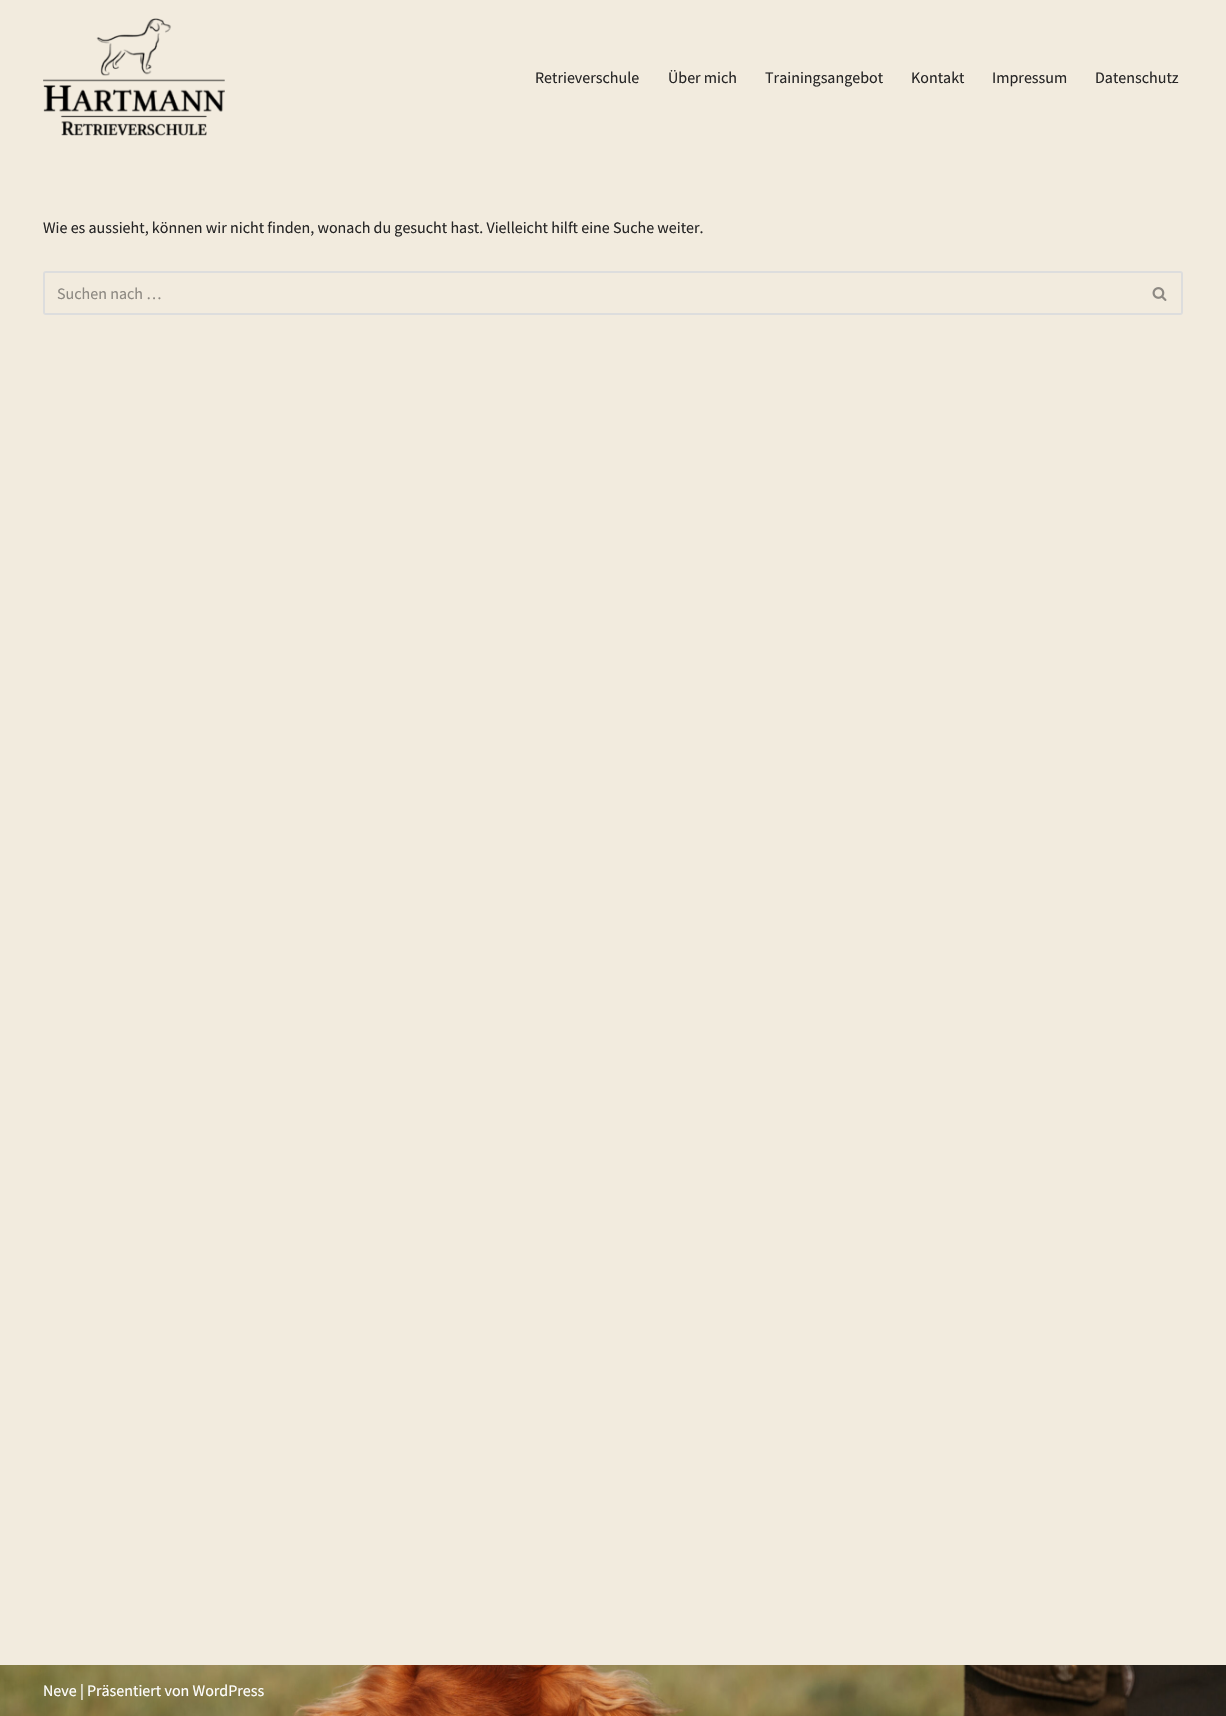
#include "include/core/SkBlurTypes.h"
#include "include/core/SkCanvas.h"
#include "include/core/SkData.h"
#include "include/core/SkFont.h"
#include "include/core/SkFontMgr.h"
#include "include/core/SkImage.h"
#include "include/core/SkMaskFilter.h"
#include "include/core/SkPaint.h"
#include "include/core/SkPathBuilder.h"
#include "include/core/SkTextBlob.h"
#include "include/effects/SkDashPathEffect.h"
#include "include/effects/SkGradientShader.h"
#include "include/utils/SkParsePath.h"

extern sk_sp<SkFontMgr> fontMgr;

void draw(SkCanvas* canvas) {
  SkPaint p;
  p.setAntiAlias(true);
  canvas->clear(SkColorSetRGB(242, 235, 222));
  canvas->drawImageRect(SkImages::DeferredFromEncodedData(SkData::MakeFromFileName("images/1.png")), SkRect::MakeLTRB(43, 18, 225, 136), SkSamplingOptions());
  p.setColor(SkColorSetRGB(221, 221, 221));
  canvas->drawPath(SkPathBuilder(SkPathFillType::kEvenOdd).moveTo(46, 271).lineTo(1138, 271).lineTo(1138, 315).lineTo(46, 315).cubicTo(44, 315, 43, 314, 43, 312).lineTo(43, 274).cubicTo(43, 272, 44, 271, 46, 271).close().moveTo(46, 273).lineTo(1138, 273).lineTo(1138, 313).lineTo(46, 313).cubicTo(45, 313, 45, 313, 45, 312).lineTo(45, 274).cubicTo(45, 273, 45, 273, 46, 273).close().detach(), p);
  canvas->drawPath(SkPathBuilder(SkPathFillType::kEvenOdd).moveTo(1138, 271).lineTo(1180, 271).cubicTo(1182, 271, 1183, 272, 1183, 274).lineTo(1183, 312).cubicTo(1183, 314, 1182, 315, 1180, 315).lineTo(1138, 315).close().moveTo(1138, 273).lineTo(1180, 273).cubicTo(1181, 273, 1181, 273, 1181, 274).lineTo(1181, 312).cubicTo(1181, 313, 1181, 313, 1180, 313).lineTo(1138, 313).close().detach(), p);
  canvas->drawImageRect(SkImages::DeferredFromEncodedData(SkData::MakeFromFileName("images/2.png")), SkRect::MakeLTRB(1152, 287, 1167, 301), SkSamplingOptions());
  canvas->drawImageRect(SkImages::DeferredFromEncodedData(SkData::MakeFromFileName("images/3.png")), SkRect::MakeLTRB(0, 1665, 1226, 1716), SkSamplingOptions());
  SkFont font1(fontMgr->matchFamilyStyle("Source Sans Pro", SkFontStyle::Normal()), 16);
  font1.setSubpixel(true);
  p.setColor(SkColorSetRGB(39, 38, 38));
  canvas->drawString("Retrieverschule", 535, 83, font1, p);
  canvas->drawString("Über mich", 668, 83, font1, p);
  canvas->drawString("Trainingsangebot", 765, 83, font1, p);
  canvas->drawString("Kontakt", 911, 83, font1, p);
  canvas->drawString("Impressum", 992, 83, font1, p);
  canvas->drawString("Datenschutz", 1095, 83, font1, p);
  canvas->drawString("Wie es aussieht, können wir nicht finden, wonach du gesucht hast. Vielleicht hilft eine Suche weiter.", 43, 233, font1, p);
  p.setColor(SkColorSetRGB(141, 137, 130));
  canvas->drawString("Suchen nach …", 57, 299, font1, p);
  p.setColor(SK_ColorWHITE);
  canvas->drawString("Neve | Präsentiert von WordPress", 43, 1696, font1, p);
}
